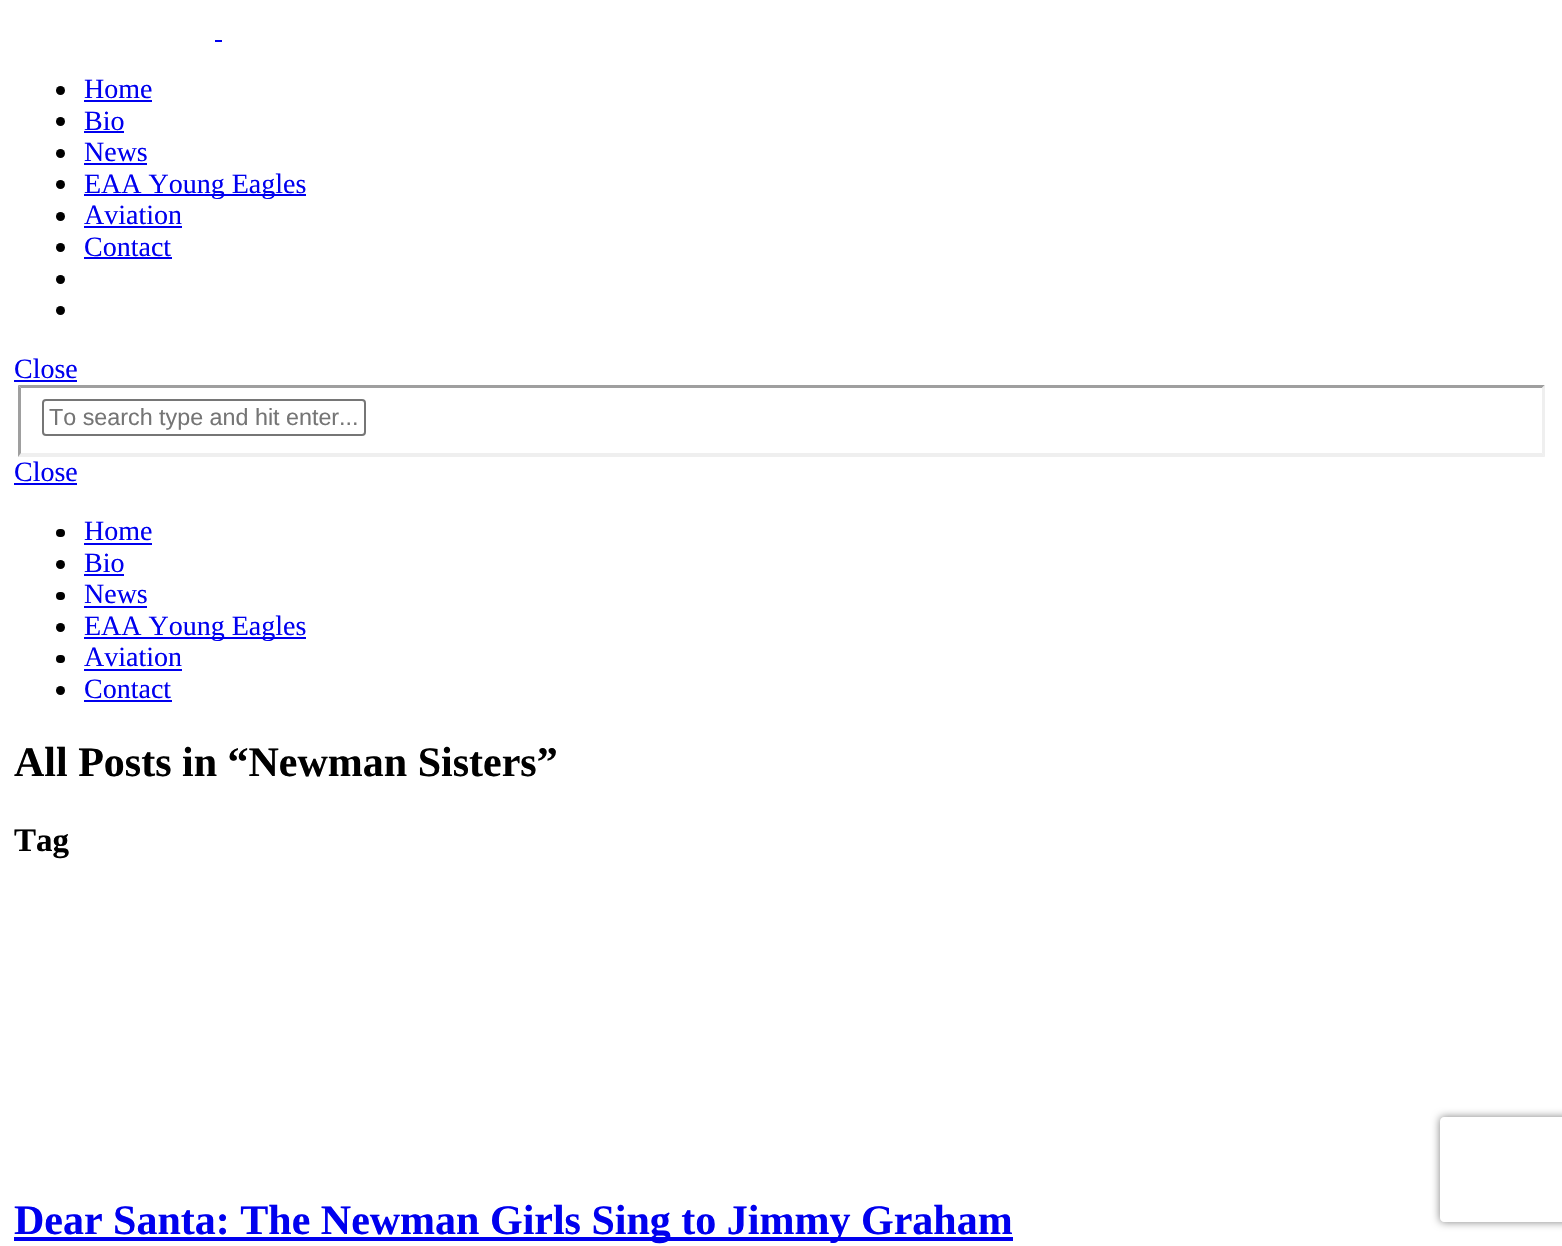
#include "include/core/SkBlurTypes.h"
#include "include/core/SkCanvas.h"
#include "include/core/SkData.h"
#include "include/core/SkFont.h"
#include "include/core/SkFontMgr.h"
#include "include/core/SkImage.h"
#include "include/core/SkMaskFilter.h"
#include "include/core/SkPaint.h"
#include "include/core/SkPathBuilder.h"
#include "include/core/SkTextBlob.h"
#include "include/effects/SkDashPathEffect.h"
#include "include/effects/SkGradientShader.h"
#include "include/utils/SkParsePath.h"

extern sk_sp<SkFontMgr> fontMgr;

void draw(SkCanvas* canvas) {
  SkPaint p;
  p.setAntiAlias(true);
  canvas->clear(SK_ColorWHITE);
  p.setColor(SkColorSetRGB(0, 0, 238));
  canvas->drawRect(SkRect::MakeLTRB(215, 40, 222, 42), p);
  p.setColor(SK_ColorBLACK);
  canvas->drawCircle(60.5f, 90.5f, 4.5f, p);
  p.setColor(SkColorSetRGB(0, 0, 238));
  canvas->drawRect(SkRect::MakeLTRB(84, 100, 152, 102), p);
  p.setColor(SK_ColorBLACK);
  canvas->drawCircle(60.5f, 121.5f, 4.5f, p);
  p.setColor(SkColorSetRGB(0, 0, 238));
  canvas->drawRect(SkRect::MakeLTRB(84, 131, 124, 133), p);
  p.setColor(SK_ColorBLACK);
  canvas->drawCircle(60.5f, 153.5f, 4.5f, p);
  p.setColor(SkColorSetRGB(0, 0, 238));
  canvas->drawRect(SkRect::MakeLTRB(84, 163, 147, 165), p);
  p.setColor(SK_ColorBLACK);
  canvas->drawCircle(60.5f, 184.5f, 4.5f, p);
  p.setColor(SkColorSetRGB(0, 0, 238));
  canvas->drawRect(SkRect::MakeLTRB(84, 194, 306, 196), p);
  p.setColor(SK_ColorBLACK);
  canvas->drawCircle(60.5f, 216.5f, 4.5f, p);
  p.setColor(SkColorSetRGB(0, 0, 238));
  canvas->drawRect(SkRect::MakeLTRB(84, 226, 182, 228), p);
  p.setColor(SK_ColorBLACK);
  canvas->drawCircle(60.5f, 247.5f, 4.5f, p);
  p.setColor(SkColorSetRGB(0, 0, 238));
  canvas->drawRect(SkRect::MakeLTRB(84, 257, 172, 259), p);
  p.setColor(SK_ColorBLACK);
  canvas->drawCircle(60.5f, 279.5f, 4.5f, p);
  canvas->drawCircle(60.5f, 310.5f, 4.5f, p);
  p.setColor(SkColorSetRGB(0, 0, 238));
  canvas->drawRect(SkRect::MakeLTRB(14, 380, 77, 382), p);
  p.setColor(SkColorSetRGB(159, 159, 159));
  canvas->drawPath(SkPathBuilder().moveTo(18, 385).lineTo(1545, 385).lineTo(1542, 388).lineTo(21, 388).close().detach(), p);
  p.setColor(SkColorSetRGB(239, 239, 239));
  canvas->drawPath(SkPathBuilder().moveTo(1545, 385).lineTo(1545, 457).lineTo(1542, 453).lineTo(1542, 388).close().detach(), p);
  canvas->drawPath(SkPathBuilder().moveTo(1545, 457).lineTo(18, 457).lineTo(21, 453).lineTo(1542, 453).close().detach(), p);
  p.setColor(SkColorSetRGB(159, 159, 159));
  canvas->drawPath(SkPathBuilder().moveTo(18, 457).lineTo(18, 385).lineTo(21, 388).lineTo(21, 453).close().detach(), p);
  p.setStyle(SkPaint::kStroke_Style);
  p.setStrokeWidth(2);
  p.setColor(SkColorSetRGB(118, 118, 118));
  canvas->drawRoundRect(SkRect::MakeLTRB(43, 400, 365, 435), 3, 3, p);
  p.setStyle(SkPaint::kFill_Style);
  p.setColor(SkColorSetRGB(0, 0, 238));
  canvas->drawRect(SkRect::MakeLTRB(14, 483, 77, 485), p);
  p.setColor(SK_ColorBLACK);
  canvas->drawRoundRect(SkRect::MakeLTRB(56, 529, 65, 537), 4, 4, p);
  p.setColor(SkColorSetRGB(0, 0, 238));
  canvas->drawRect(SkRect::MakeLTRB(84, 543, 152, 545), p);
  p.setColor(SK_ColorBLACK);
  canvas->drawCircle(60.5f, 564.5f, 4.5f, p);
  p.setColor(SkColorSetRGB(0, 0, 238));
  canvas->drawRect(SkRect::MakeLTRB(84, 574, 124, 576), p);
  p.setColor(SK_ColorBLACK);
  canvas->drawRoundRect(SkRect::MakeLTRB(56, 592, 65, 600), 4, 4, p);
  p.setColor(SkColorSetRGB(0, 0, 238));
  canvas->drawRect(SkRect::MakeLTRB(84, 606, 147, 608), p);
  p.setColor(SK_ColorBLACK);
  canvas->drawCircle(60.5f, 627.5f, 4.5f, p);
  p.setColor(SkColorSetRGB(0, 0, 238));
  canvas->drawRect(SkRect::MakeLTRB(84, 637, 306, 639), p);
  p.setColor(SK_ColorBLACK);
  canvas->drawRoundRect(SkRect::MakeLTRB(56, 655, 65, 663), 4, 4, p);
  p.setColor(SkColorSetRGB(0, 0, 238));
  canvas->drawRect(SkRect::MakeLTRB(84, 669, 182, 671), p);
  p.setColor(SK_ColorBLACK);
  canvas->drawCircle(60.5f, 690.5f, 4.5f, p);
  p.setColor(SkColorSetRGB(0, 0, 238));
  canvas->drawRect(SkRect::MakeLTRB(84, 700, 172, 702), p);
  canvas->drawRect(SkRect::MakeLTRB(14, 1237, 1013, 1241), p);
  canvas->save();
  canvas->clipPath(SkPathBuilder(SkPathFillType::kEvenOdd).moveTo(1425, 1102).lineTo(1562, 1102).lineTo(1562, 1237).lineTo(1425, 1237).close().moveTo(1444, 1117).lineTo(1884, 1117).cubicTo(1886, 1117, 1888, 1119, 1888, 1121).lineTo(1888, 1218).cubicTo(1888, 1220, 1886, 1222, 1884, 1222).lineTo(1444, 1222).cubicTo(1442, 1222, 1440, 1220, 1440, 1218).lineTo(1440, 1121).cubicTo(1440, 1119, 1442, 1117, 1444, 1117).close().detach(), true);
  p.setColor(SkColorSetRGB(128, 128, 128));
  p.setMaskFilter(SkMaskFilter::MakeBlur(kNormal_SkBlurStyle, 4.5f));
  canvas->drawRoundRect(SkRect::MakeLTRB(1440, 1117, 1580, 1222), 4, 4, p);
  p.setMaskFilter(nullptr);
  canvas->restore();
  SkFont font1(fontMgr->matchFamilyStyle("Liberation Serif", SkFontStyle::Normal()), 28);
  font1.setSubpixel(true);
  p.setColor(SkColorSetRGB(0, 0, 238));
  canvas->drawString("Home", 84, 98, font1, p);
  canvas->drawString("Bio", 84, 130, font1, p);
  canvas->drawString("News", 84, 161, font1, p);
  canvas->drawString("EAA Young Eagles", 84, 193, font1, p);
  canvas->drawString("Aviation", 84, 224, font1, p);
  canvas->drawString("Contact", 84, 256, font1, p);
  canvas->drawString("Close", 14, 378, font1, p);
  SkFont font2(fontMgr->matchFamilyStyle("Liberation Sans", SkFontStyle::Normal()), 23.3f);
  font2.setSubpixel(true);
  p.setColor(SkColorSetRGB(117, 117, 117));
  canvas->drawString("To search type and hit enter...", 49, 425, font2, p);
  p.setColor(SkColorSetRGB(0, 0, 238));
  canvas->drawString("Close", 14, 481, font1, p);
  canvas->drawString("Home", 84, 540, font1, p);
  canvas->drawString("Bio", 84, 572, font1, p);
  canvas->drawString("News", 84, 603, font1, p);
  canvas->drawString("EAA Young Eagles", 84, 635, font1, p);
  canvas->drawString("Aviation", 84, 666, font1, p);
  canvas->drawString("Contact", 84, 698, font1, p);
  SkFont font3(fontMgr->matchFamilyStyle("Liberation Serif", SkFontStyle::Bold()), 42);
  font3.setSubpixel(true);
  p.setColor(SK_ColorBLACK);
  canvas->drawString("All Posts in “Newman Sisters”", 14, 776, font3, p);
  SkFont font4(fontMgr->matchFamilyStyle("Liberation Serif", SkFontStyle::Bold()), 33);
  font4.setSubpixel(true);
  canvas->drawString("Tag", 14, 851, font4, p);
  p.setColor(SkColorSetRGB(0, 0, 238));
  canvas->drawString("Dear Santa: The Newman Girls Sing to Jimmy Graham", 14, 1234, font3, p);
}
